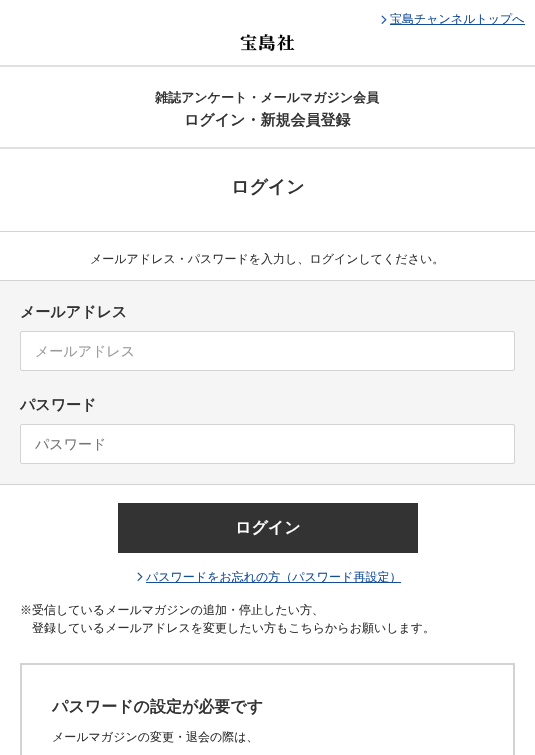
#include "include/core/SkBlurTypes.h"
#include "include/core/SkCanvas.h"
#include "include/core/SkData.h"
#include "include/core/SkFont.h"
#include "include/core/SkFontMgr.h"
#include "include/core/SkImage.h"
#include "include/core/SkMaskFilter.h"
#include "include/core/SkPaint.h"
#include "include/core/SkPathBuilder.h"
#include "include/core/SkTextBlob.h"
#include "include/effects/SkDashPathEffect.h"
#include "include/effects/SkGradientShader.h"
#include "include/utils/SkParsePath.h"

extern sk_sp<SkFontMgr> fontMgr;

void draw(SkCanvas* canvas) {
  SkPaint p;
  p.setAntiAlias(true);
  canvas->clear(SK_ColorWHITE);
  canvas->drawImageRect(SkImages::DeferredFromEncodedData(SkData::MakeFromFileName("images/1.png")), SkRect::MakeLTRB(381, 15, 387, 24), SkSamplingOptions());
  p.setColor(SkColorSetRGB(22, 77, 155));
  canvas->drawRect(SkRect::MakeLTRB(390, 24, 525, 25), p);
  canvas->drawImageRect(SkImages::DeferredFromEncodedData(SkData::MakeFromFileName("images/2.png")), SkRect::MakeLTRB(240, 34, 295, 51), SkSamplingOptions());
  p.setColor(SkColorSetRGB(224, 224, 224));
  canvas->drawRect(SkRect::MakeLTRB(0, 65, 535, 67), p);
  canvas->drawRect(SkRect::MakeLTRB(0, 147, 535, 149), p);
  p.setColor(SkColorSetRGB(211, 211, 211));
  canvas->drawRect(SkRect::MakeLTRB(0, 231, 535, 232), p);
  p.setColor(SkColorSetRGB(245, 245, 245));
  canvas->drawRect(SkRect::MakeLTRB(0, 281, 535, 484), p);
  p.setColor(SkColorSetRGB(211, 211, 211));
  canvas->drawRect(SkRect::MakeLTRB(0, 280, 535, 281), p);
  canvas->drawRect(SkRect::MakeLTRB(0, 484, 535, 485), p);
  p.setColor(SK_ColorWHITE);
  canvas->drawRoundRect(SkRect::MakeLTRB(20.5f, 331.5f, 514.5f, 370.5f), 1.5f, 1.5f, p);
  p.setStyle(SkPaint::kStroke_Style);
  p.setStrokeWidth(1);
  p.setColor(SkColorSetRGB(211, 211, 211));
  canvas->drawRoundRect(SkRect::MakeLTRB(20.5f, 331.5f, 514.5f, 370.5f), 1.5f, 1.5f, p);
  p.setStyle(SkPaint::kFill_Style);
  p.setColor(SK_ColorWHITE);
  canvas->drawRoundRect(SkRect::MakeLTRB(20.5f, 424.5f, 514.5f, 463.5f), 1.5f, 1.5f, p);
  p.setStyle(SkPaint::kStroke_Style);
  p.setColor(SkColorSetRGB(211, 211, 211));
  canvas->drawRoundRect(SkRect::MakeLTRB(20.5f, 424.5f, 514.5f, 463.5f), 1.5f, 1.5f, p);
  p.setStyle(SkPaint::kFill_Style);
  p.setColor(SkColorSetRGB(51, 51, 51));
  canvas->drawRect(SkRect::MakeLTRB(118, 503, 418, 553), p);
  canvas->drawImageRect(SkImages::DeferredFromEncodedData(SkData::MakeFromFileName("images/1.png")), SkRect::MakeLTRB(137, 572, 143, 581), SkSamplingOptions());
  p.setColor(SkColorSetRGB(22, 77, 155));
  canvas->drawRect(SkRect::MakeLTRB(146, 582, 401, 583), p);
  p.setStyle(SkPaint::kStroke_Style);
  p.setStrokeWidth(2);
  p.setColor(SkColorSetRGB(211, 211, 211));
  canvas->drawRect(SkRect::MakeLTRB(21, 664, 514, 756), p);
  SkFont font1(fontMgr->matchFamilyStyle("WenQuanYi Zen Hei", SkFontStyle(500, SkFontStyle::kNormal_Width, SkFontStyle::kUpright_Slant)), 12);
  font1.setSubpixel(true);
  p.setStyle(SkPaint::kFill_Style);
  p.setColor(SkColorSetRGB(22, 77, 155));
  canvas->drawString("宝島チャンネルトップへ", 390, 23, font1, p);
  SkFont font2(fontMgr->matchFamilyStyle("WenQuanYi Zen Hei", SkFontStyle::Bold()), 13);
  font2.setSubpixel(true);
  p.setColor(SkColorSetRGB(51, 51, 51));
  canvas->drawString("雑誌アンケート・メールマガジン会員", 155, 102, font2, p);
  SkFont font3(fontMgr->matchFamilyStyle("WenQuanYi Zen Hei", SkFontStyle::Bold()), 15);
  font3.setSubpixel(true);
  canvas->drawString("ログイン・新規会員登録", 184, 125, font3, p);
  SkFont font4(fontMgr->matchFamilyStyle("WenQuanYi Zen Hei", SkFontStyle::Bold()), 18);
  font4.setSubpixel(true);
  canvas->drawString("ログイン", 231, 193, font4, p);
  canvas->drawString("メールアドレス・パスワードを入力し、ログインしてください。", 90, 263, font1, p);
  canvas->drawString("メールアドレス", 20, 317, font3, p);
  SkFont font5(fontMgr->matchFamilyStyle("WenQuanYi Zen Hei", SkFontStyle(500, SkFontStyle::kNormal_Width, SkFontStyle::kUpright_Slant)), 14);
  font5.setSubpixel(true);
  p.setColor(SkColorSetRGB(153, 153, 153));
  canvas->drawString("メールアドレス", 35, 356, font5, p);
  p.setColor(SkColorSetRGB(51, 51, 51));
  canvas->drawString("パスワード", 20, 410, font3, p);
  p.setColor(SkColorSetRGB(117, 117, 117));
  canvas->drawString("パスワード", 35, 449, font5, p);
  SkFont font6(fontMgr->matchFamilyStyle("WenQuanYi Zen Hei", SkFontStyle::Bold()), 16);
  font6.setSubpixel(true);
  p.setColor(SK_ColorWHITE);
  canvas->drawString("ログイン", 235, 533, font6, p);
  p.setColor(SkColorSetRGB(22, 77, 155));
  canvas->drawString("パスワードをお忘れの方（パスワード再設定）", 146, 581, font1, p);
  p.setColor(SkColorSetRGB(51, 51, 51));
  canvas->drawString("※受信しているメールマガジンの追加・停止したい方、", 20, 614, font1, p);
  canvas->drawString("登録しているメールアドレスを変更したい方もこちらからお願いします。", 32, 632, font1, p);
  canvas->drawString("パスワードの設定が必要です", 52, 712, font6, p);
  canvas->drawString("メールマガジンの変更・退会の際は、", 52, 741, font1, p);
}
